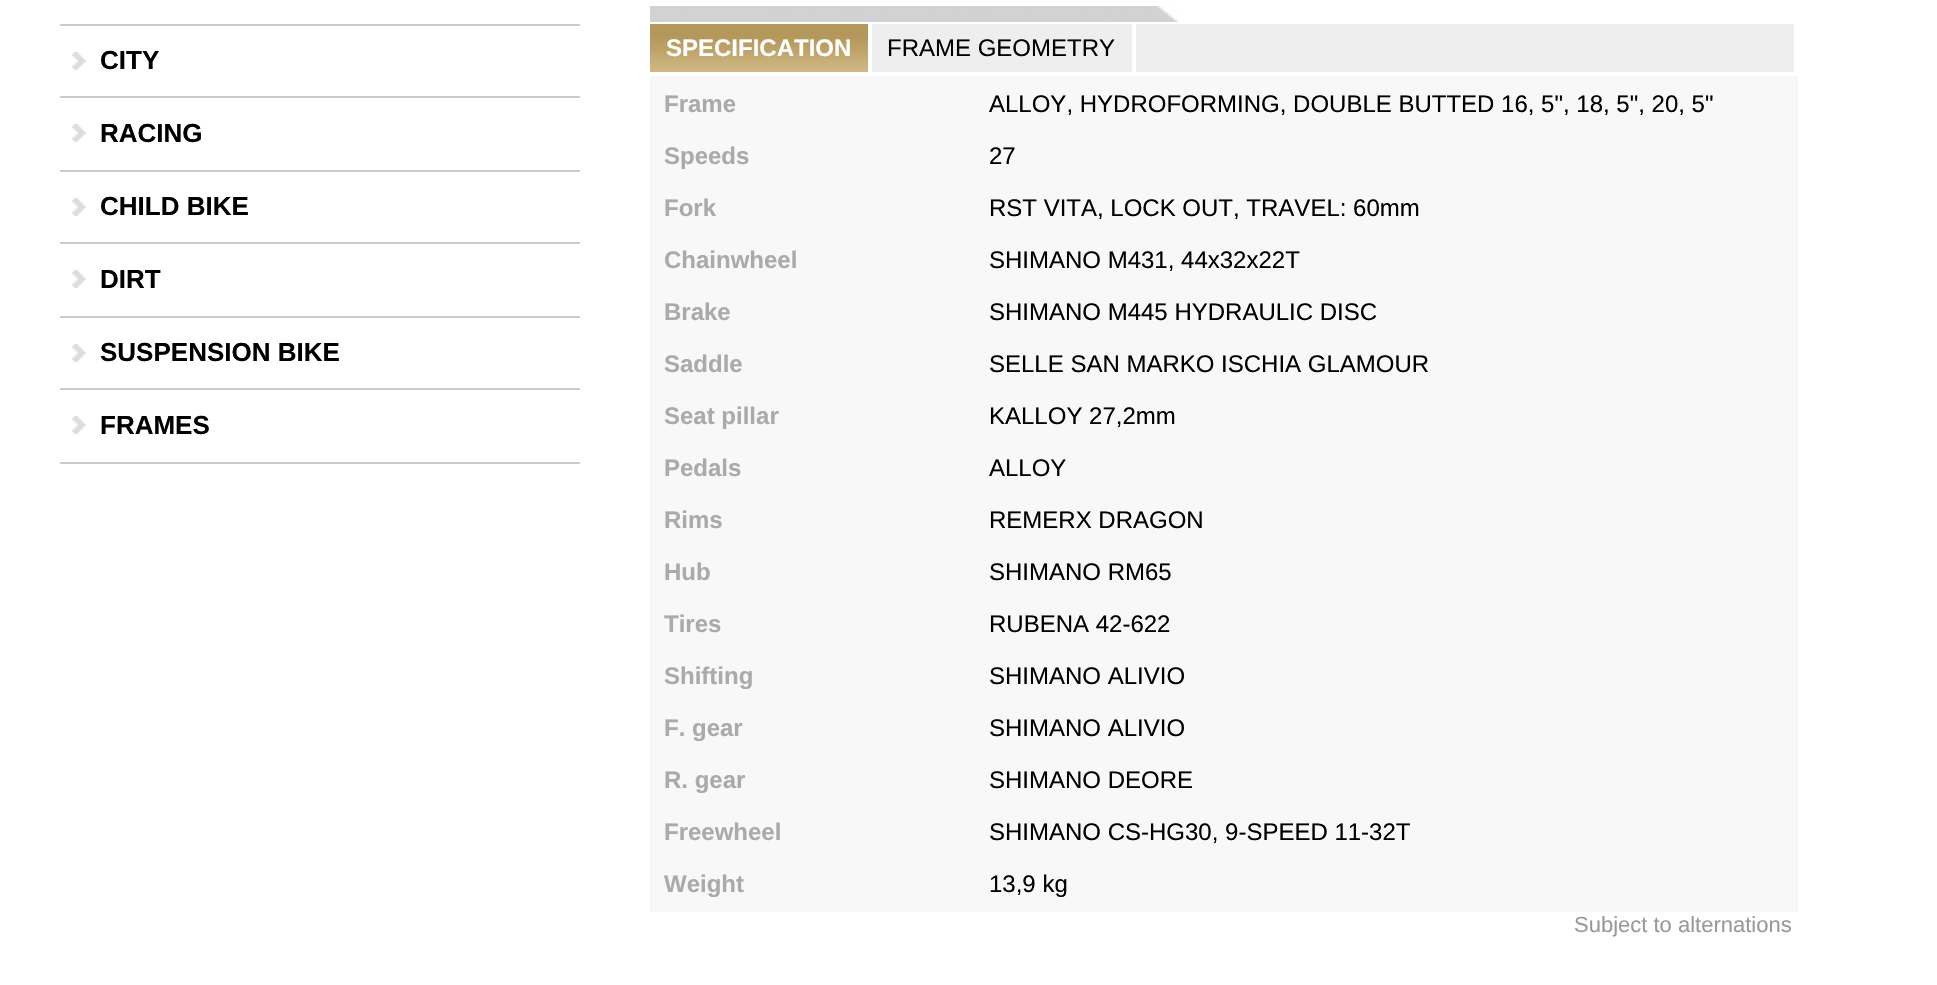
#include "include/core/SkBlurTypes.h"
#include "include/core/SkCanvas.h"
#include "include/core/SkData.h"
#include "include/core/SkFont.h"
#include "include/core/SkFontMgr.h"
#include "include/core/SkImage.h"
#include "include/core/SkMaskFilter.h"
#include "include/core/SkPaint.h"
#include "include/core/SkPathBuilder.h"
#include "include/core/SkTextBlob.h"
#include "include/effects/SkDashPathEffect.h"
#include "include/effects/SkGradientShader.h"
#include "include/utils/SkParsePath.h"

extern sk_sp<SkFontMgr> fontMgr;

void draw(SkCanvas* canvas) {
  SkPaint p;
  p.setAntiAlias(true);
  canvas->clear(SK_ColorWHITE);
  p.setColor(SkColorSetRGB(204, 204, 204));
  canvas->drawRect(SkRect::MakeLTRB(60, 24, 580, 26), p);
  canvas->drawImageRect(SkImages::DeferredFromEncodedData(SkData::MakeFromFileName("images/1.png")), SkRect::MakeLTRB(72, 52, 86, 70), SkSamplingOptions());
  canvas->drawRect(SkRect::MakeLTRB(60, 96, 580, 98), p);
  canvas->drawImageRect(SkImages::DeferredFromEncodedData(SkData::MakeFromFileName("images/1.png")), SkRect::MakeLTRB(72, 124, 86, 142), SkSamplingOptions());
  canvas->drawRect(SkRect::MakeLTRB(60, 170, 580, 172), p);
  canvas->drawImageRect(SkImages::DeferredFromEncodedData(SkData::MakeFromFileName("images/1.png")), SkRect::MakeLTRB(72, 198, 86, 216), SkSamplingOptions());
  canvas->drawRect(SkRect::MakeLTRB(60, 242, 580, 244), p);
  canvas->drawImageRect(SkImages::DeferredFromEncodedData(SkData::MakeFromFileName("images/1.png")), SkRect::MakeLTRB(72, 270, 86, 288), SkSamplingOptions());
  canvas->drawRect(SkRect::MakeLTRB(60, 316, 580, 318), p);
  canvas->drawImageRect(SkImages::DeferredFromEncodedData(SkData::MakeFromFileName("images/1.png")), SkRect::MakeLTRB(72, 344, 86, 362), SkSamplingOptions());
  canvas->drawRect(SkRect::MakeLTRB(60, 388, 580, 390), p);
  canvas->drawImageRect(SkImages::DeferredFromEncodedData(SkData::MakeFromFileName("images/1.png")), SkRect::MakeLTRB(72, 416, 86, 434), SkSamplingOptions());
  canvas->drawRect(SkRect::MakeLTRB(60, 462, 580, 464), p);
  canvas->drawImageRect(SkImages::DeferredFromEncodedData(SkData::MakeFromFileName("images/2.png")), SkRect::MakeLTRB(650, 6, 1178, 22), SkSamplingOptions());
  p.setColor(SkColorSetRGB(207, 183, 131));
  canvas->drawRect(SkRect::MakeLTRB(650, 68, 868, 72), p);
  canvas->drawImageRect(SkImages::DeferredFromEncodedData(SkData::MakeFromFileName("images/3.png")), SkRect::MakeLTRB(650, 24, 868, 68), SkSamplingOptions());
  p.setColor(SkColorSetRGB(238, 238, 238));
  canvas->drawRect(SkRect::MakeLTRB(872, 24, 1132, 72), p);
  canvas->drawRect(SkRect::MakeLTRB(1136, 24, 1794, 72), p);
  p.setColor(SkColorSetRGB(248, 248, 248));
  canvas->drawRect(SkRect::MakeLTRB(650, 76, 1798, 912), p);
  SkFont font1(fontMgr->matchFamilyStyle("Liberation Sans", SkFontStyle::Bold()), 26);
  font1.setSubpixel(true);
  p.setColor(SK_ColorBLACK);
  canvas->drawString("CITY", 100, 69, font1, p);
  canvas->drawString("RACING", 100, 142, font1, p);
  canvas->drawString("CHILD BIKE", 100, 215, font1, p);
  canvas->drawString("DIRT", 100, 288, font1, p);
  canvas->drawString("SUSPENSION BIKE", 100, 361, font1, p);
  canvas->drawString("FRAMES", 100, 434, font1, p);
  SkFont font2(fontMgr->matchFamilyStyle("Liberation Sans", SkFontStyle::Bold()), 24);
  font2.setSubpixel(true);
  p.setColor(SK_ColorWHITE);
  canvas->drawString("SPECIFICATION", 666, 56, font2, p);
  SkFont font3(fontMgr->matchFamilyStyle("Liberation Sans", SkFontStyle::Normal()), 24);
  font3.setSubpixel(true);
  p.setColor(SK_ColorBLACK);
  canvas->drawString("FRAME GEOMETRY", 887, 56, font3, p);
  p.setColor(SkColorSetRGB(170, 170, 170));
  canvas->drawString("Frame", 664, 112, font2, p);
  p.setColor(SK_ColorBLACK);
  canvas->drawString("ALLOY, HYDROFORMING, DOUBLE BUTTED 16, 5\", 18, 5\", 20, 5\"", 989, 112, font3, p);
  p.setColor(SkColorSetRGB(170, 170, 170));
  canvas->drawString("Speeds", 664, 164, font2, p);
  p.setColor(SK_ColorBLACK);
  canvas->drawString("27", 989, 164, font3, p);
  p.setColor(SkColorSetRGB(170, 170, 170));
  canvas->drawString("Fork", 664, 216, font2, p);
  p.setColor(SK_ColorBLACK);
  canvas->drawString("RST VITA, LOCK OUT, TRAVEL: 60mm", 989, 216, font3, p);
  p.setColor(SkColorSetRGB(170, 170, 170));
  canvas->drawString("Chainwheel", 664, 268, font2, p);
  p.setColor(SK_ColorBLACK);
  canvas->drawString("SHIMANO M431, 44x32x22T", 989, 268, font3, p);
  p.setColor(SkColorSetRGB(170, 170, 170));
  canvas->drawString("Brake", 664, 320, font2, p);
  p.setColor(SK_ColorBLACK);
  canvas->drawString("SHIMANO M445 HYDRAULIC DISC", 989, 320, font3, p);
  p.setColor(SkColorSetRGB(170, 170, 170));
  canvas->drawString("Saddle", 664, 372, font2, p);
  p.setColor(SK_ColorBLACK);
  canvas->drawString("SELLE SAN MARKO ISCHIA GLAMOUR", 989, 372, font3, p);
  p.setColor(SkColorSetRGB(170, 170, 170));
  canvas->drawString("Seat pillar", 664, 424, font2, p);
  p.setColor(SK_ColorBLACK);
  canvas->drawString("KALLOY 27,2mm", 989, 424, font3, p);
  p.setColor(SkColorSetRGB(170, 170, 170));
  canvas->drawString("Pedals", 664, 476, font2, p);
  p.setColor(SK_ColorBLACK);
  canvas->drawString("ALLOY", 989, 476, font3, p);
  p.setColor(SkColorSetRGB(170, 170, 170));
  canvas->drawString("Rims", 664, 528, font2, p);
  p.setColor(SK_ColorBLACK);
  canvas->drawString("REMERX DRAGON", 989, 528, font3, p);
  p.setColor(SkColorSetRGB(170, 170, 170));
  canvas->drawString("Hub", 664, 580, font2, p);
  p.setColor(SK_ColorBLACK);
  canvas->drawString("SHIMANO RM65", 989, 580, font3, p);
  p.setColor(SkColorSetRGB(170, 170, 170));
  canvas->drawString("Tires", 664, 632, font2, p);
  p.setColor(SK_ColorBLACK);
  canvas->drawString("RUBENA 42-622", 989, 632, font3, p);
  p.setColor(SkColorSetRGB(170, 170, 170));
  canvas->drawString("Shifting", 664, 684, font2, p);
  p.setColor(SK_ColorBLACK);
  canvas->drawString("SHIMANO ALIVIO", 989, 684, font3, p);
  p.setColor(SkColorSetRGB(170, 170, 170));
  canvas->drawString("F. gear", 664, 736, font2, p);
  p.setColor(SK_ColorBLACK);
  canvas->drawString("SHIMANO ALIVIO", 989, 736, font3, p);
  p.setColor(SkColorSetRGB(170, 170, 170));
  canvas->drawString("R. gear", 664, 788, font2, p);
  p.setColor(SK_ColorBLACK);
  canvas->drawString("SHIMANO DEORE", 989, 788, font3, p);
  p.setColor(SkColorSetRGB(170, 170, 170));
  canvas->drawString("Freewheel", 664, 840, font2, p);
  p.setColor(SK_ColorBLACK);
  canvas->drawString("SHIMANO CS-HG30, 9-SPEED 11-32T", 989, 840, font3, p);
  p.setColor(SkColorSetRGB(170, 170, 170));
  canvas->drawString("Weight", 664, 892, font2, p);
  p.setColor(SK_ColorBLACK);
  canvas->drawString("13,9 kg", 989, 892, font3, p);
  SkFont font4(fontMgr->matchFamilyStyle("Liberation Sans", SkFontStyle::Normal()), 22);
  font4.setSubpixel(true);
  p.setColor(SkColorSetRGB(153, 153, 153));
  canvas->drawString("Subject to alternations", 1574, 932, font4, p);
}
